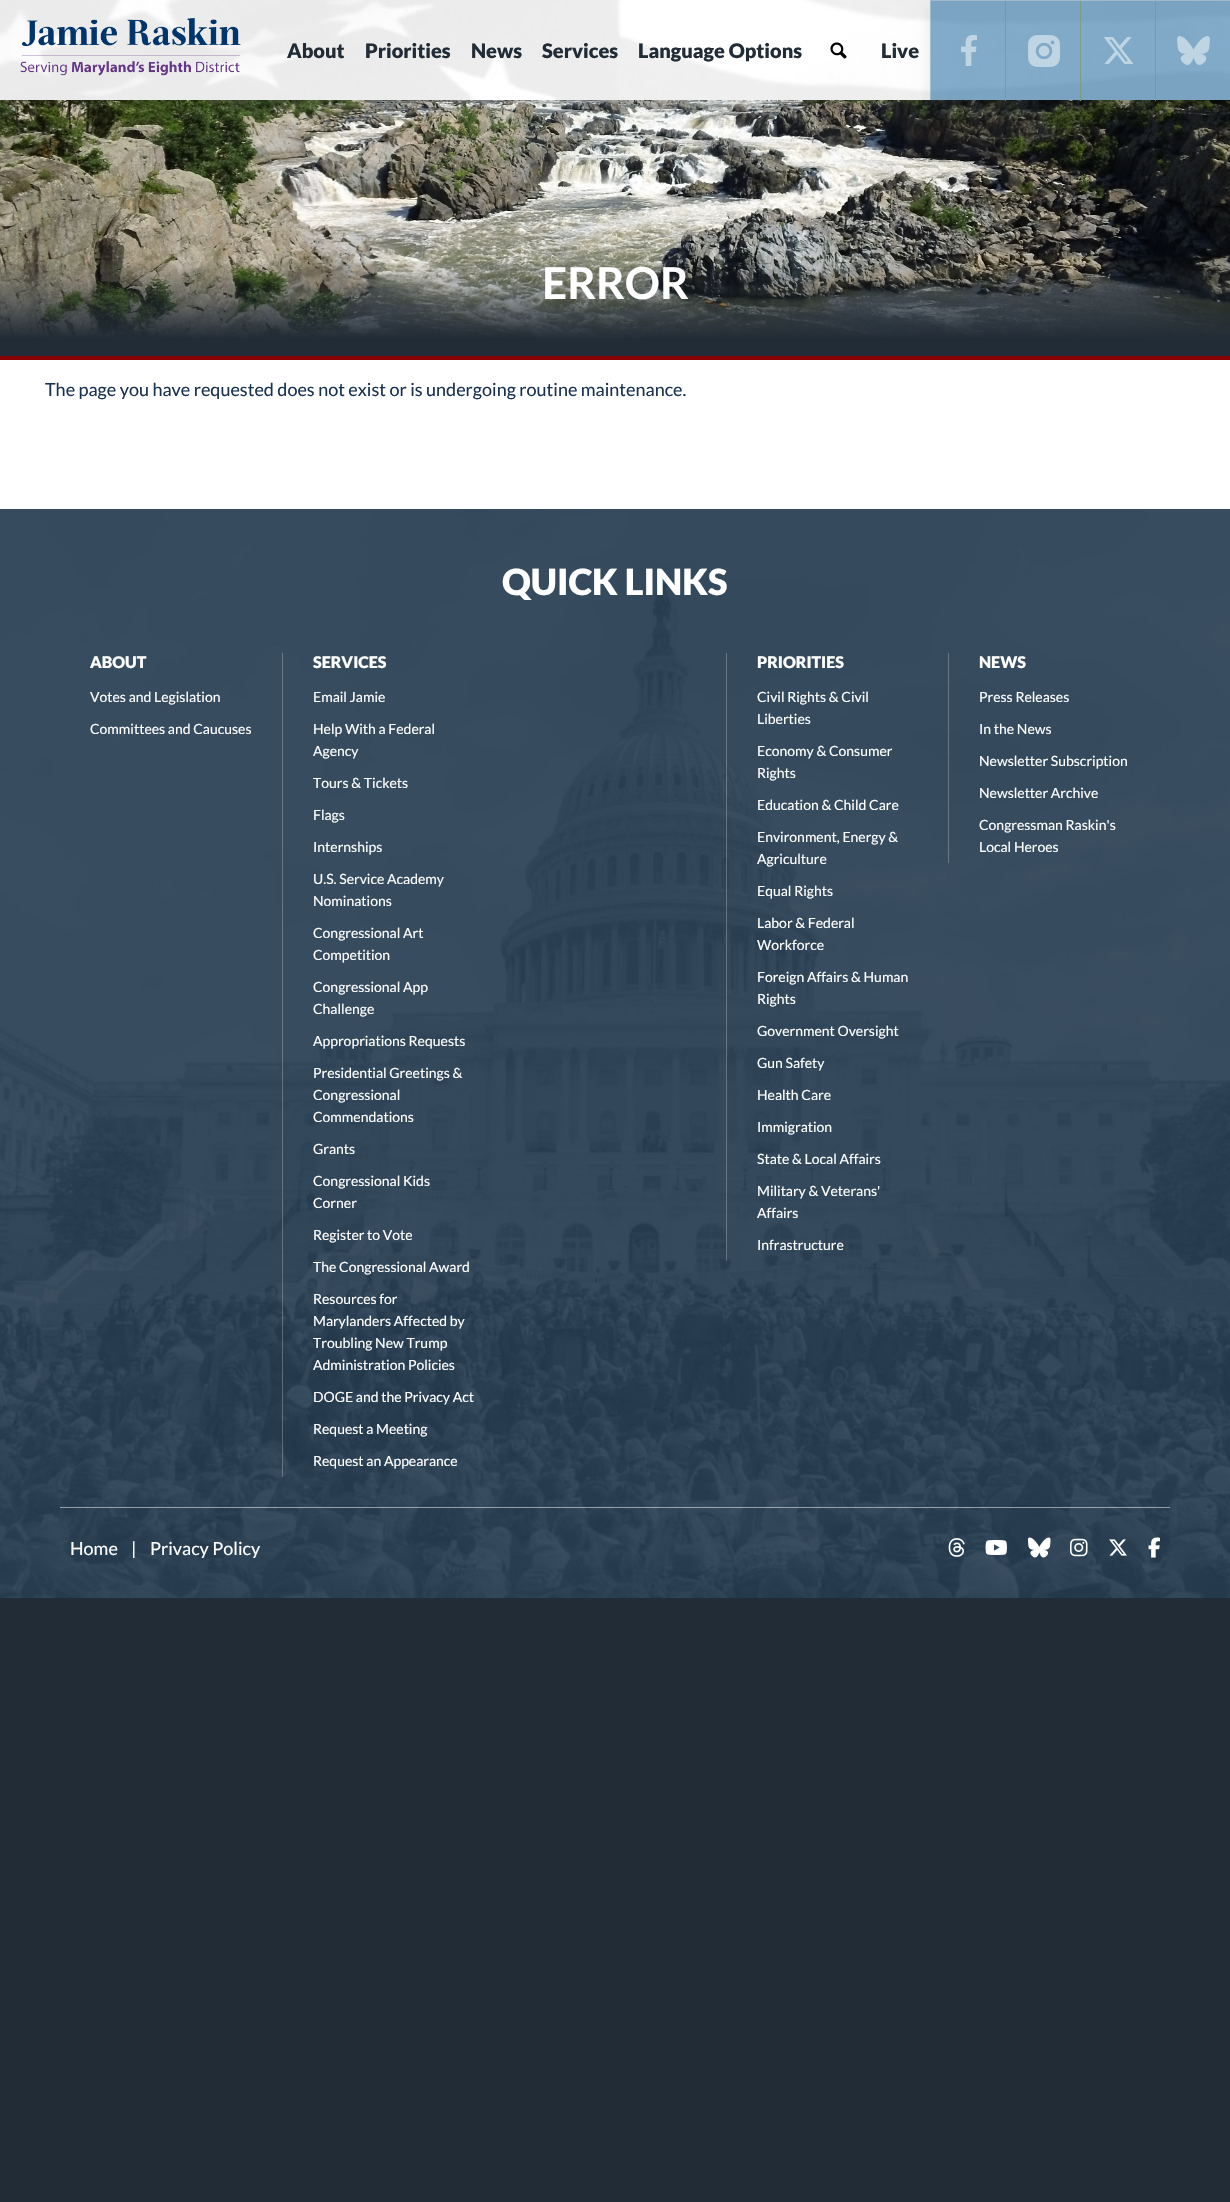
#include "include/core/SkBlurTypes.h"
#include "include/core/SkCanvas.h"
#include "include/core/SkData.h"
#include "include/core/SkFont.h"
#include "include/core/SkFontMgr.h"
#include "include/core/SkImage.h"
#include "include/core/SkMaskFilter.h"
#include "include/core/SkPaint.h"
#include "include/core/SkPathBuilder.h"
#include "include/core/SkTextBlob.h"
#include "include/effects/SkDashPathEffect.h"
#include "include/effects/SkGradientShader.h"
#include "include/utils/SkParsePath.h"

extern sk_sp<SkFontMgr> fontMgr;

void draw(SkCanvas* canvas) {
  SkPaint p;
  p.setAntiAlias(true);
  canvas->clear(SkColorSetRGB(34, 44, 54));
  canvas->drawImageRect(SkImages::DeferredFromEncodedData(SkData::MakeFromFileName("images/1.png")), SkRect::MakeLTRB(0, 100, 1230, 338), SkSamplingOptions());
  p.setColor(SkColorSetRGB(134, 0, 0));
  canvas->drawRect(SkRect::MakeLTRB(0, 356, 1230, 360), p);
  canvas->drawImageRect(SkImages::DeferredFromEncodedData(SkData::MakeFromFileName("images/2.png")), SkRect::MakeLTRB(0, 0, 1230, 100), SkSamplingOptions());
  canvas->drawImageRect(SkImages::DeferredFromEncodedData(SkData::MakeFromFileName("images/3.png")), SkRect::MakeLTRB(20, 18, 241, 76), SkSamplingOptions());
  canvas->drawImageRect(SkImages::DeferredFromEncodedData(SkData::MakeFromFileName("images/4.png")), SkRect::MakeLTRB(830, 42, 847, 59), SkSamplingOptions());
  canvas->save();
  canvas->clipPath(SkPathBuilder(SkPathFillType::kEvenOdd).moveTo(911, 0).lineTo(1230, 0).lineTo(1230, 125).lineTo(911, 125).close().moveTo(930, 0).lineTo(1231, 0).lineTo(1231, 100).lineTo(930, 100).close().detach(), true);
  p.setColor(SkColorSetARGB(23, 0, 0, 0));
  p.setMaskFilter(SkMaskFilter::MakeBlur(kNormal_SkBlurStyle, 6));
  canvas->drawRect(SkRect::MakeLTRB(930, 6, 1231, 106), p);
  p.setMaskFilter(nullptr);
  canvas->restore();
  p.setColor(SkColorSetARGB(128, 5, 90, 149));
  canvas->drawRect(SkRect::MakeLTRB(930, 0, 1230, 100), p);
  p.setColor(SkColorSetRGB(163, 184, 199));
  canvas->drawPath(SkPathBuilder().moveTo(930, 0).lineTo(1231, 0).lineTo(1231, 1).lineTo(931, 1).close().detach(), p);
  p.setColor(SkColorSetARGB(64, 255, 255, 255));
  canvas->drawPath(SkPathBuilder().moveTo(930, 100).lineTo(930, 0).lineTo(931, 1).lineTo(931, 100).close().detach(), p);
  p.setColor(SkColorSetARGB(128, 121, 158, 103));
  canvas->drawRect(SkRect::MakeLTRB(1005, 1, 1006, 101), p);
  canvas->drawImageRect(SkImages::DeferredFromEncodedData(SkData::MakeFromFileName("images/5.png")), SkRect::MakeLTRB(961, 35, 977, 66), SkSamplingOptions());
  canvas->drawRect(SkRect::MakeLTRB(1005, 1, 1006, 101), p);
  canvas->drawRect(SkRect::MakeLTRB(1080, 1, 1081, 101), p);
  canvas->drawImageRect(SkImages::DeferredFromEncodedData(SkData::MakeFromFileName("images/6.png")), SkRect::MakeLTRB(1028, 35, 1060, 67), SkSamplingOptions());
  canvas->drawRect(SkRect::MakeLTRB(1080, 1, 1081, 101), p);
  canvas->drawRect(SkRect::MakeLTRB(1155, 1, 1156, 101), p);
  canvas->drawImageRect(SkImages::DeferredFromEncodedData(SkData::MakeFromFileName("images/7.png")), SkRect::MakeLTRB(1104, 37, 1134, 64), SkSamplingOptions());
  canvas->drawRect(SkRect::MakeLTRB(1155, 1, 1156, 101), p);
  canvas->drawImageRect(SkImages::DeferredFromEncodedData(SkData::MakeFromFileName("images/8.png")), SkRect::MakeLTRB(1177, 36, 1210, 65), SkSamplingOptions());
  {
    const SkColor colors[] = {SkColorSetRGB(34, 44, 54), SkColorSetARGB(0, 34, 44, 54)};
    const float stops[] = {0.05f, 0.27f};
    const SkPoint ends[] = {{615, 356}, {615, 0}};
    p.setShader(SkGradientShader::MakeLinear(ends, colors, stops, 2, SkTileMode::kClamp));
    p.setAlpha(255);
  }
  canvas->drawRect(SkRect::MakeLTRB(0, 262, 1230, 338), p);
  p.setShader(nullptr);
  p.setColor(SK_ColorWHITE);
  canvas->drawRect(SkRect::MakeLTRB(0, 360, 1230, 509), p);
  canvas->drawImageRect(SkImages::DeferredFromEncodedData(SkData::MakeFromFileName("images/9.png")), SkRect::MakeLTRB(0, 509, 1230, 1598), SkSamplingOptions());
  p.setColor(SkColorSetARGB(64, 255, 255, 255));
  canvas->drawRect(SkRect::MakeLTRB(282, 653, 283, 1477), p);
  canvas->drawRect(SkRect::MakeLTRB(726, 653, 727, 1261), p);
  canvas->drawRect(SkRect::MakeLTRB(948, 653, 949, 863), p);
  p.setColor(SkColorSetARGB(128, 255, 255, 255));
  canvas->drawRect(SkRect::MakeLTRB(60, 1507, 1170, 1508), p);
  canvas->drawImageRect(SkImages::DeferredFromEncodedData(SkData::MakeFromFileName("images/10.png")), SkRect::MakeLTRB(948, 1538, 965, 1557), SkSamplingOptions());
  canvas->drawImageRect(SkImages::DeferredFromEncodedData(SkData::MakeFromFileName("images/11.png")), SkRect::MakeLTRB(985, 1540, 1007, 1555), SkSamplingOptions());
  canvas->drawImageRect(SkImages::DeferredFromEncodedData(SkData::MakeFromFileName("images/12.png")), SkRect::MakeLTRB(1027, 1537, 1051, 1558), SkSamplingOptions());
  canvas->drawImageRect(SkImages::DeferredFromEncodedData(SkData::MakeFromFileName("images/13.png")), SkRect::MakeLTRB(1070, 1538, 1088, 1557), SkSamplingOptions());
  canvas->drawImageRect(SkImages::DeferredFromEncodedData(SkData::MakeFromFileName("images/14.png")), SkRect::MakeLTRB(1109, 1539, 1127, 1556), SkSamplingOptions());
  canvas->drawImageRect(SkImages::DeferredFromEncodedData(SkData::MakeFromFileName("images/15.png")), SkRect::MakeLTRB(1148, 1537, 1160, 1558), SkSamplingOptions());
  SkFont font1(fontMgr->matchFamilyStyle("Lato", SkFontStyle(900, SkFontStyle::kNormal_Width, SkFontStyle::kUpright_Slant)), 20);
  font1.setSubpixel(true);
  p.setColor(SkColorSetRGB(34, 44, 54));
  canvas->drawString("About", 287, 58, font1, p);
  canvas->drawString("Priorities", 365, 58, font1, p);
  canvas->drawString("News", 471, 58, font1, p);
  canvas->drawString("Services", 542, 58, font1, p);
  canvas->drawString("Language Options", 638, 58, font1, p);
  canvas->drawString("Live", 881, 58, font1, p);
  SkFont font2(fontMgr->matchFamilyStyle("Lato", SkFontStyle::Bold()), 44);
  font2.setSubpixel(true);
  p.setColor(SK_ColorWHITE);
  canvas->drawString("ERROR", 542, 299, font2, p);
  SkFont font3(fontMgr->matchFamilyStyle("Lato", SkFontStyle::Normal()), 18);
  font3.setSubpixel(true);
  p.setColor(SkColorSetRGB(24, 49, 81));
  canvas->drawString("The page you have requested does not exist or is undergoing routine maintenance.", 45, 396, font3, p);
  SkFont font4(fontMgr->matchFamilyStyle("Lato", SkFontStyle(900, SkFontStyle::kNormal_Width, SkFontStyle::kUpright_Slant)), 36);
  font4.setSubpixel(true);
  p.setColor(SK_ColorWHITE);
  canvas->drawString("QUICK LINKS", 502, 595, font4, p);
  SkFont font5(fontMgr->matchFamilyStyle("Lato", SkFontStyle(900, SkFontStyle::kNormal_Width, SkFontStyle::kUpright_Slant)), 16);
  font5.setSubpixel(true);
  canvas->drawString("ABOUT", 90, 668, font5, p);
  SkFont font6(fontMgr->matchFamilyStyle("Lato", SkFontStyle::Normal()), 14);
  font6.setSubpixel(true);
  canvas->drawString("Votes and Legislation", 90, 702, font6, p);
  canvas->drawString("Committees and Caucuses", 90, 734, font6, p);
  canvas->drawString("SERVICES", 313, 668, font5, p);
  canvas->drawString("Email Jamie", 313, 702, font6, p);
  canvas->drawString("Help With a Federal", 313, 734, font6, p);
  canvas->drawString("Agency", 313, 756, font6, p);
  canvas->drawString("Tours & Tickets", 313, 788, font6, p);
  canvas->drawString("Flags", 313, 820, font6, p);
  canvas->drawString("Internships", 313, 852, font6, p);
  canvas->drawString("U.S. Service Academy", 313, 884, font6, p);
  canvas->drawString("Nominations", 313, 906, font6, p);
  canvas->drawString("Congressional Art", 313, 938, font6, p);
  canvas->drawString("Competition", 313, 960, font6, p);
  canvas->drawString("Congressional App", 313, 992, font6, p);
  canvas->drawString("Challenge", 313, 1014, font6, p);
  canvas->drawString("Appropriations Requests", 313, 1046, font6, p);
  canvas->drawString("Presidential Greetings &", 313, 1078, font6, p);
  canvas->drawString("Congressional", 313, 1100, font6, p);
  canvas->drawString("Commendations", 313, 1122, font6, p);
  canvas->drawString("Grants", 313, 1154, font6, p);
  canvas->drawString("Congressional Kids", 313, 1186, font6, p);
  canvas->drawString("Corner", 313, 1208, font6, p);
  canvas->drawString("Register to Vote", 313, 1240, font6, p);
  canvas->drawString("The Congressional Award", 313, 1272, font6, p);
  canvas->drawString("Resources for", 313, 1304, font6, p);
  canvas->drawString("Marylanders Affected by", 313, 1326, font6, p);
  canvas->drawString("Troubling New Trump", 313, 1348, font6, p);
  canvas->drawString("Administration Policies", 313, 1370, font6, p);
  canvas->drawString("DOGE and the Privacy Act", 313, 1402, font6, p);
  canvas->drawString("Request a Meeting", 313, 1434, font6, p);
  canvas->drawString("Request an Appearance", 313, 1466, font6, p);
  canvas->drawString("PRIORITIES", 757, 668, font5, p);
  canvas->drawString("Civil Rights & Civil", 757, 702, font6, p);
  canvas->drawString("Liberties", 757, 724, font6, p);
  canvas->drawString("Economy & Consumer", 757, 756, font6, p);
  canvas->drawString("Rights", 757, 778, font6, p);
  canvas->drawString("Education & Child Care", 757, 810, font6, p);
  canvas->drawString("Environment, Energy &", 757, 842, font6, p);
  canvas->drawString("Agriculture", 757, 864, font6, p);
  canvas->drawString("Equal Rights", 757, 896, font6, p);
  canvas->drawString("Labor & Federal", 757, 928, font6, p);
  canvas->drawString("Workforce", 757, 950, font6, p);
  canvas->drawString("Foreign Affairs & Human", 757, 982, font6, p);
  canvas->drawString("Rights", 757, 1004, font6, p);
  canvas->drawString("Government Oversight", 757, 1036, font6, p);
  canvas->drawString("Gun Safety", 757, 1068, font6, p);
  canvas->drawString("Health Care", 757, 1100, font6, p);
  canvas->drawString("Immigration", 757, 1132, font6, p);
  canvas->drawString("State & Local Affairs", 757, 1164, font6, p);
  canvas->drawString("Military & Veterans'", 757, 1196, font6, p);
  canvas->drawString("Affairs", 757, 1218, font6, p);
  canvas->drawString("Infrastructure", 757, 1250, font6, p);
  canvas->drawString("NEWS", 979, 668, font5, p);
  canvas->drawString("Press Releases", 979, 702, font6, p);
  canvas->drawString("In the News", 979, 734, font6, p);
  canvas->drawString("Newsletter Subscription", 979, 766, font6, p);
  canvas->drawString("Newsletter Archive", 979, 798, font6, p);
  canvas->drawString("Congressman Raskin's", 979, 830, font6, p);
  canvas->drawString("Local Heroes", 979, 852, font6, p);
  canvas->drawString("Home", 70, 1555, font3, p);
  canvas->drawString("|", 131, 1555, font3, p);
  canvas->drawString("Privacy Policy", 150, 1555, font3, p);
}
